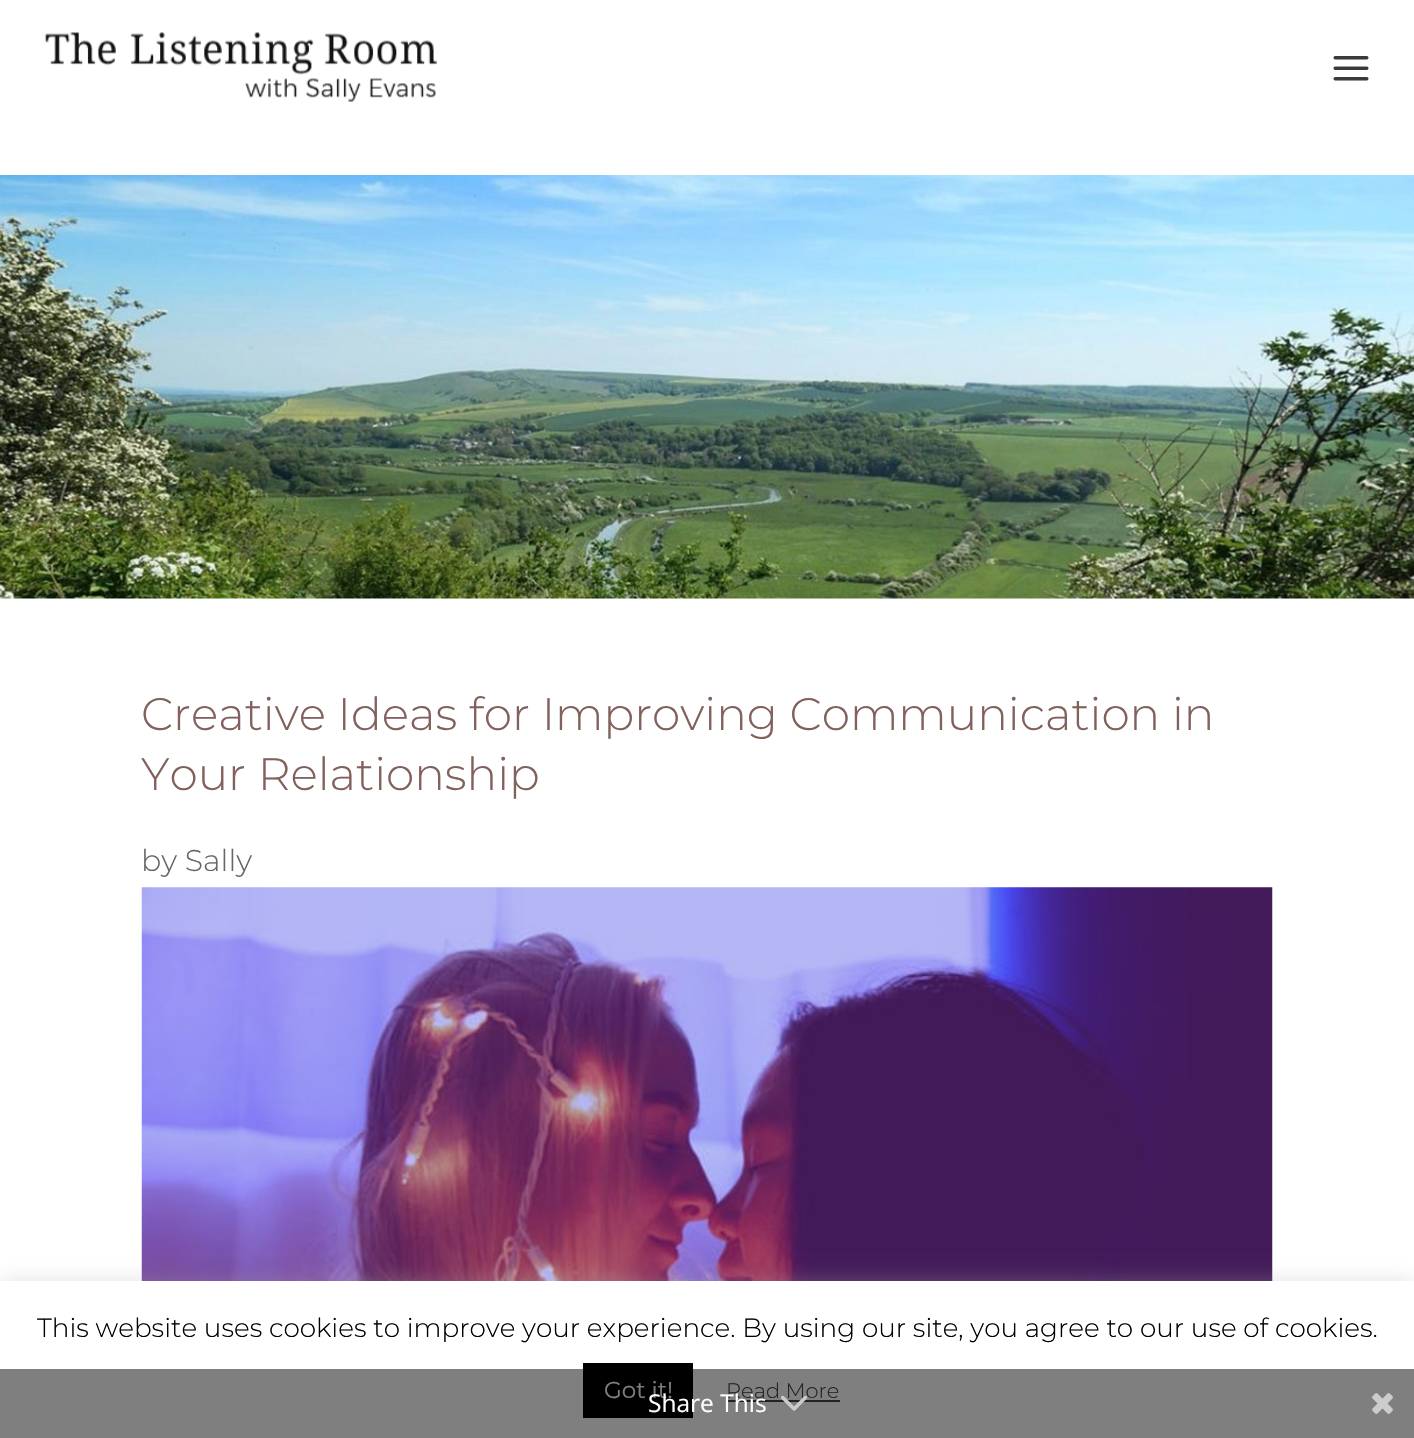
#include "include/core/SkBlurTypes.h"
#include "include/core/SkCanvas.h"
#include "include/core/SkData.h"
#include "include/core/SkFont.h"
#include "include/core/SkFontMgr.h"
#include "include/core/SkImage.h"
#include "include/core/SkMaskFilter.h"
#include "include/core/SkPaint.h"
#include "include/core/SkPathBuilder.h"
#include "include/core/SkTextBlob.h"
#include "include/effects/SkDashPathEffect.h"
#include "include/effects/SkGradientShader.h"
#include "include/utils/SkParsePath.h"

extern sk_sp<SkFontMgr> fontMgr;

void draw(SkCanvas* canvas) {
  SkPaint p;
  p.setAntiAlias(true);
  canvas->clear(SK_ColorWHITE);
  canvas->drawImageRect(SkImages::DeferredFromEncodedData(SkData::MakeFromFileName("images/1.png")), SkRect::MakeLTRB(44, 32, 438, 102), SkSamplingOptions());
  canvas->drawImageRect(SkImages::DeferredFromEncodedData(SkData::MakeFromFileName("images/2.png")), SkRect::MakeLTRB(1333, 56, 1369, 81), SkSamplingOptions());
  canvas->drawImageRect(SkImages::DeferredFromEncodedData(SkData::MakeFromFileName("images/3.png")), SkRect::MakeLTRB(0, 175, 1414, 599), SkSamplingOptions());
  canvas->drawImageRect(SkImages::DeferredFromEncodedData(SkData::MakeFromFileName("images/4.png")), SkRect::MakeLTRB(141, 887, 1273, 1281), SkSamplingOptions());
  p.setColor(SkColorSetARGB(77, 172, 171, 171));
  p.setMaskFilter(SkMaskFilter::MakeBlur(kNormal_SkBlurStyle, 9));
  canvas->drawRect(SkRect::MakeLTRB(0, 1279, 1414, 1437), p);
  p.setMaskFilter(nullptr);
  p.setColor(SK_ColorWHITE);
  canvas->drawRect(SkRect::MakeLTRB(0, 1281, 1414, 1438), p);
  p.setColor(SK_ColorBLACK);
  canvas->drawRect(SkRect::MakeLTRB(583, 1363, 693, 1418), p);
  p.setColor(SkColorSetRGB(68, 68, 68));
  canvas->drawRect(SkRect::MakeLTRB(726, 1400, 840, 1402), p);
  SkFont font1(fontMgr->matchFamilyStyle("Montserrat", SkFontStyle(300, SkFontStyle::kNormal_Width, SkFontStyle::kUpright_Slant)), 45.5f);
  font1.setSubpixel(true);
  p.setColor(SkColorSetRGB(130, 97, 92));
  canvas->drawString("Creative Ideas for Improving Communication in", 141, 730, font1, p);
  canvas->drawString("Your Relationship", 141, 790, font1, p);
  SkFont font2(fontMgr->matchFamilyStyle("Montserrat", SkFontStyle(300, SkFontStyle::kNormal_Width, SkFontStyle::kUpright_Slant)), 30);
  font2.setSubpixel(true);
  p.setColor(SkColorSetRGB(102, 102, 102));
  canvas->drawString("by Sally", 141, 871, font2, p);
  SkFont font3(fontMgr->matchFamilyStyle("Montserrat", SkFontStyle(300, SkFontStyle::kNormal_Width, SkFontStyle::kUpright_Slant)), 26.25f);
  font3.setSubpixel(true);
  p.setColor(SK_ColorBLACK);
  canvas->drawString("This website uses cookies to improve your experience. By using our site, you agree to our use of cookies.", 37, 1337, font3, p);
  SkFont font4(fontMgr->matchFamilyStyle("Montserrat", SkFontStyle::Normal()), 23);
  font4.setSubpixel(true);
  p.setColor(SK_ColorWHITE);
  canvas->drawString("Got it!", 604, 1398, font4, p);
  SkFont font5(fontMgr->matchFamilyStyle("Montserrat", SkFontStyle(300, SkFontStyle::kNormal_Width, SkFontStyle::kUpright_Slant)), 21);
  font5.setSubpixel(true);
  p.setColor(SkColorSetRGB(68, 68, 68));
  canvas->drawString("Read More", 726, 1398, font5, p);
  p.setColor(SkColorSetARGB(128, 0, 0, 0));
  canvas->drawRect(SkRect::MakeLTRB(0, 1369, 1414, 1438), p);
  SkFont font6(fontMgr->matchFamilyStyle("Open Sans", SkFontStyle::Normal()), 24.5f);
  font6.setSubpixel(true);
  p.setColor(SK_ColorWHITE);
  canvas->drawString("Share This", 648, 1412, font6, p);
  canvas->drawImageRect(SkImages::DeferredFromEncodedData(SkData::MakeFromFileName("images/5.png")), SkRect::MakeLTRB(781, 1395, 808, 1411), SkSamplingOptions());
  canvas->drawImageRect(SkImages::DeferredFromEncodedData(SkData::MakeFromFileName("images/6.png")), SkRect::MakeLTRB(1372, 1393, 1393, 1414), SkSamplingOptions());
}
